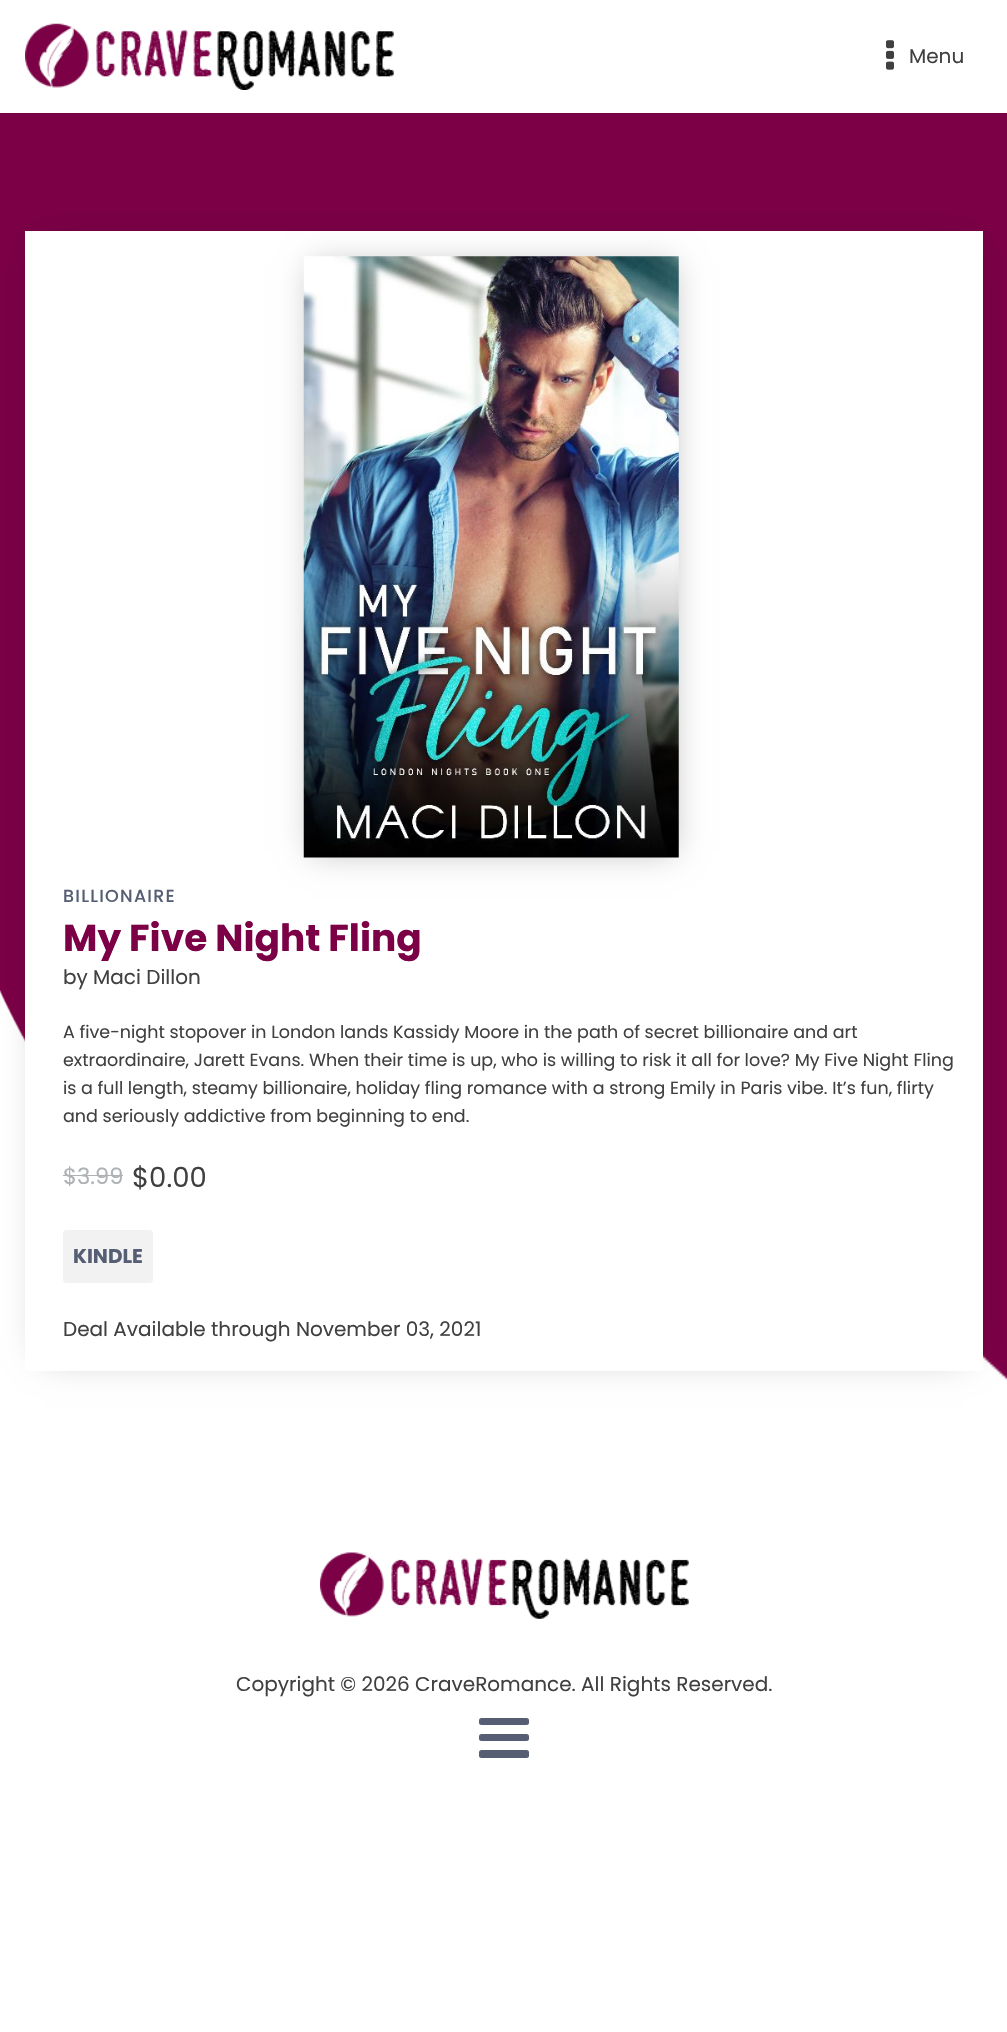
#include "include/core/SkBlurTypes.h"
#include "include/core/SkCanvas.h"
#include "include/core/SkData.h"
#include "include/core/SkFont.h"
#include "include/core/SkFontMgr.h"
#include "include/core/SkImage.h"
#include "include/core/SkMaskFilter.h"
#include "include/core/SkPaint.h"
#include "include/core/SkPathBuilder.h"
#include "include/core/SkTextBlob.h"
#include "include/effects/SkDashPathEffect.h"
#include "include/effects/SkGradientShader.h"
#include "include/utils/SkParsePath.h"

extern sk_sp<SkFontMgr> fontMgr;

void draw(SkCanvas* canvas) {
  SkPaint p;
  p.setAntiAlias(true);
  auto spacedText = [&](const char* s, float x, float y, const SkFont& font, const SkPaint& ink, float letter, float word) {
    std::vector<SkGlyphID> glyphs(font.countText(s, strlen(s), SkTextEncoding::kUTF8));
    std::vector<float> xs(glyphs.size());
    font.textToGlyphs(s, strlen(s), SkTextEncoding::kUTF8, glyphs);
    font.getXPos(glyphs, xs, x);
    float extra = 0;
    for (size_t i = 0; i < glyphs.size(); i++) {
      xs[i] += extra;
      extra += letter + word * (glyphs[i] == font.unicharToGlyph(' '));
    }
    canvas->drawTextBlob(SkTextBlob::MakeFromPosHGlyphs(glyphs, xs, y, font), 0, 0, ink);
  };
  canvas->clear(SK_ColorWHITE);
  canvas->drawImageRect(SkImages::DeferredFromEncodedData(SkData::MakeFromFileName("images/1.png")), SkRect::MakeLTRB(25, 23, 394, 90), SkSamplingOptions());
  canvas->drawImageRect(SkImages::DeferredFromEncodedData(SkData::MakeFromFileName("images/2.png")), SkRect::MakeLTRB(886, 40, 894, 70), SkSamplingOptions());
  canvas->drawImageRect(SkImages::DeferredFromEncodedData(SkData::MakeFromFileName("images/3.png")), SkRect::MakeLTRB(0, 113, 1007, 1381), SkSamplingOptions());
  p.setColor(SkColorSetARGB(82, 0, 0, 0));
  p.setMaskFilter(SkMaskFilter::MakeBlur(kNormal_SkBlurStyle, 18));
  canvas->drawRect(SkRect::MakeLTRB(45, 251, 965, 1354), p);
  p.setMaskFilter(nullptr);
  p.setColor(SK_ColorWHITE);
  canvas->drawRect(SkRect::MakeLTRB(25, 231, 983, 1371), p);
  p.setColor(SkColorSetARGB(64, 0, 0, 0));
  p.setMaskFilter(SkMaskFilter::MakeBlur(kNormal_SkBlurStyle, 15.5f));
  canvas->drawRect(SkRect::MakeLTRB(311, 264, 674, 853), p);
  p.setMaskFilter(nullptr);
  canvas->drawImageRect(SkImages::DeferredFromEncodedData(SkData::MakeFromFileName("images/4.png")), SkRect::MakeLTRB(303, 256, 679, 858), SkSamplingOptions());
  p.setColor(SkColorSetRGB(173, 178, 181));
  canvas->drawRect(SkRect::MakeLTRB(63, 1175, 123, 1176), p);
  p.setColor(SkColorSetRGB(242, 242, 242));
  canvas->drawRoundRect(SkRect::MakeLTRB(63, 1230, 153, 1283), 4, 4, p);
  canvas->drawImageRect(SkImages::DeferredFromEncodedData(SkData::MakeFromFileName("images/5.png")), SkRect::MakeLTRB(320, 1552, 689, 1619), SkSamplingOptions());
  p.setColor(SkColorSetRGB(86, 94, 115));
  canvas->drawRoundRect(SkRect::MakeLTRB(479, 1718, 529, 1725), 2.5f, 2.5f, p);
  canvas->drawRoundRect(SkRect::MakeLTRB(479, 1734, 529, 1741), 2.5f, 2.5f, p);
  canvas->drawRoundRect(SkRect::MakeLTRB(479, 1750, 529, 1758), 2.5f, 2.5f, p);
  SkFont font1(fontMgr->matchFamilyStyle("Poppins", SkFontStyle::Normal()), 20);
  font1.setSubpixel(true);
  p.setColor(SkColorSetRGB(64, 64, 64));
  canvas->drawString("Menu", 909, 63, font1, p);
  SkFont font2(fontMgr->matchFamilyStyle("Poppins", SkFontStyle(500, SkFontStyle::kNormal_Width, SkFontStyle::kUpright_Slant)), 17.5f);
  font2.setSubpixel(true);
  p.setColor(SkColorSetRGB(86, 94, 115));
  spacedText("BILLIONAIRE", 63, 902, font2, p, 1.25f, 0);
  SkFont font3(fontMgr->matchFamilyStyle("Poppins", SkFontStyle::Bold()), 37.5f);
  font3.setSubpixel(true);
  p.setColor(SkColorSetRGB(123, 0, 70));
  canvas->drawString("My Five Night Fling", 63, 951, font3, p);
  p.setColor(SkColorSetRGB(64, 64, 64));
  canvas->drawString("by Maci Dillon", 63, 984, font1, p);
  SkFont font4(fontMgr->matchFamilyStyle("Poppins", SkFontStyle::Normal()), 17.5f);
  font4.setSubpixel(true);
  canvas->drawString("A five-night stopover in London lands Kassidy Moore in the path of secret billionaire and art", 63, 1038, font4, p);
  canvas->drawString("extraordinaire, Jarett Evans. When their time is up, who is willing to risk it all for love? My Five Night Fling", 63, 1066, font4, p);
  canvas->drawString("is a full length, steamy billionaire, holiday fling romance with a strong Emily in Paris vibe. It’s fun, flirty", 63, 1094, font4, p);
  canvas->drawString("and seriously addictive from beginning to end.", 63, 1122, font4, p);
  SkFont font5(fontMgr->matchFamilyStyle("Poppins", SkFontStyle::Normal()), 22.5f);
  font5.setSubpixel(true);
  p.setColor(SkColorSetRGB(173, 178, 181));
  canvas->drawString("$3.99", 63, 1184, font5, p);
  SkFont font6(fontMgr->matchFamilyStyle("Poppins", SkFontStyle::Normal()), 27.5f);
  font6.setSubpixel(true);
  p.setColor(SkColorSetRGB(64, 64, 64));
  canvas->drawString("$0.00", 132, 1187, font6, p);
  SkFont font7(fontMgr->matchFamilyStyle("Poppins", SkFontStyle::Bold()), 20);
  font7.setSubpixel(true);
  p.setColor(SkColorSetRGB(86, 94, 115));
  canvas->drawString("KINDLE", 73, 1263, font7, p);
  p.setColor(SkColorSetRGB(64, 64, 64));
  canvas->drawString("Deal Available through November 03, 2021", 63, 1336, font1, p);
  canvas->drawString("Copyright © 2026 CraveRomance. All Rights Reserved.", 236, 1691, font1, p);
}
